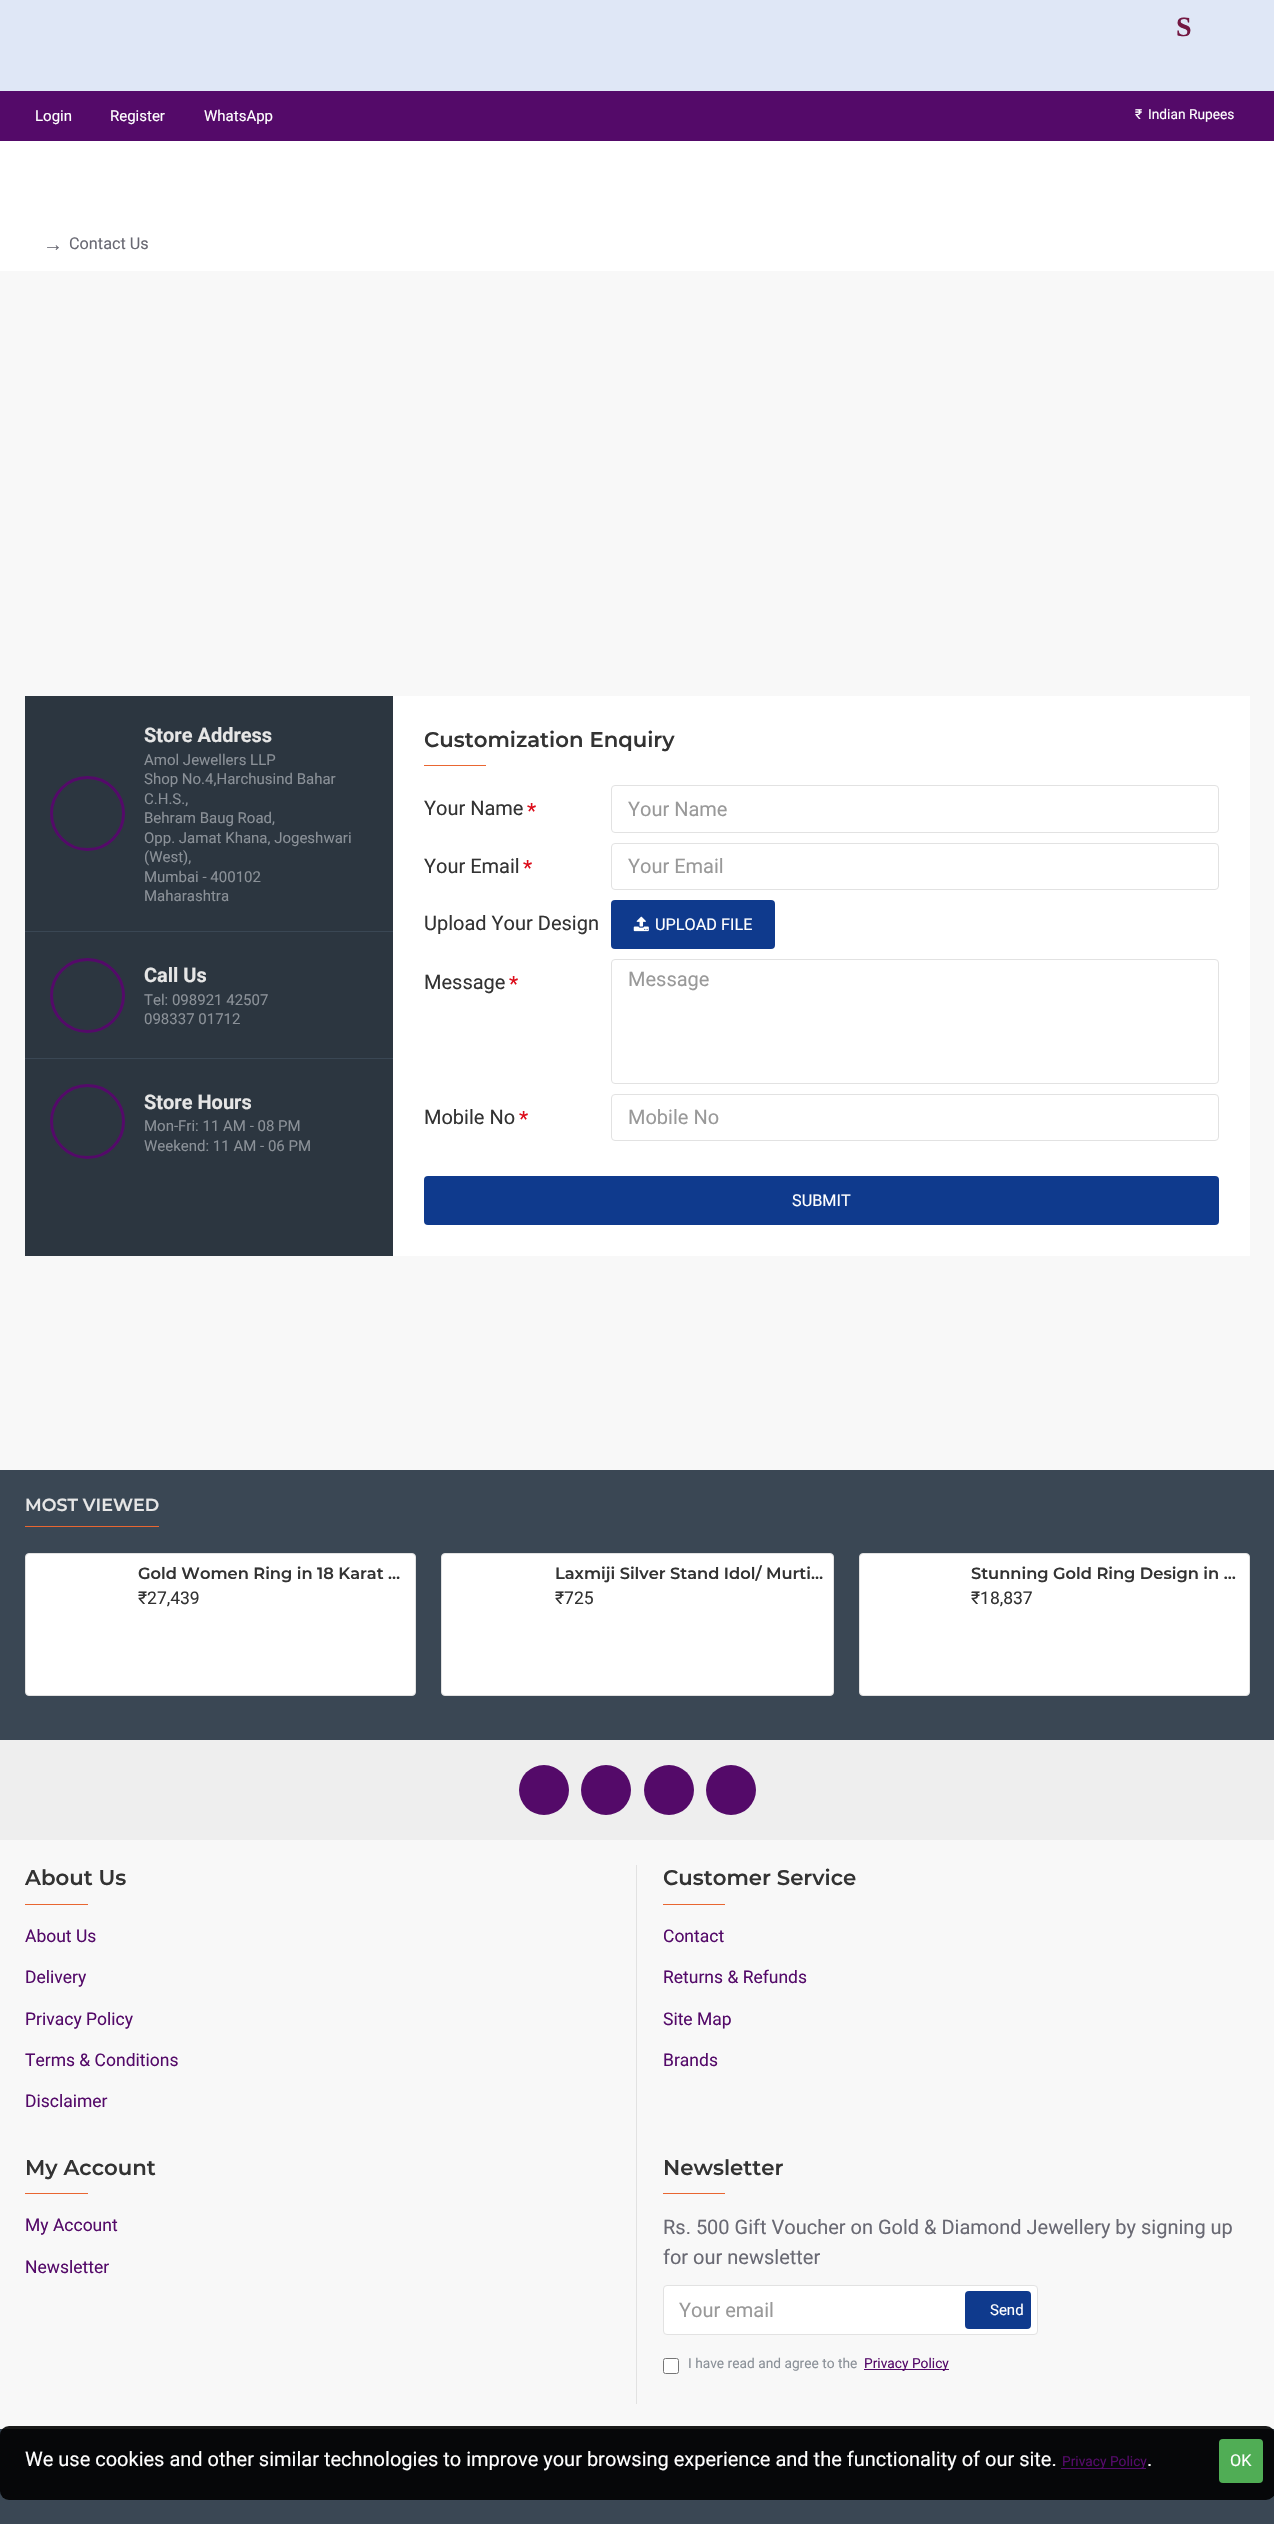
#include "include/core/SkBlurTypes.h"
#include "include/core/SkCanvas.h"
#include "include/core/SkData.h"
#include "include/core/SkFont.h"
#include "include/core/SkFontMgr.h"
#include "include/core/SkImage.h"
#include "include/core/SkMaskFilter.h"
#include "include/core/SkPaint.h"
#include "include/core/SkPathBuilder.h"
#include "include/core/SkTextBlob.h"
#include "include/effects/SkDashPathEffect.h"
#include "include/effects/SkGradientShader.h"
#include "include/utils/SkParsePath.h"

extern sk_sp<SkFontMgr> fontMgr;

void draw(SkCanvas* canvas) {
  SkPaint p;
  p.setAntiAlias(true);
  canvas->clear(SkColorSetRGB(248, 248, 248));
  p.setColor(SkColorSetRGB(223, 231, 246));
  canvas->drawRect(SkRect::MakeLTRB(0, 0, 1274, 91), p);
  p.setColor(SkColorSetRGB(84, 10, 105));
  canvas->drawRect(SkRect::MakeLTRB(0, 91, 1274, 141), p);
  p.setColor(SK_ColorWHITE);
  canvas->drawRect(SkRect::MakeLTRB(0, 141, 1274, 271), p);
  p.setColor(SkColorSetRGB(44, 54, 64));
  canvas->drawRect(SkRect::MakeLTRB(25, 696, 393, 1256), p);
  p.setColor(SkColorSetRGB(58, 71, 84));
  canvas->drawRect(SkRect::MakeLTRB(25, 931, 393, 932), p);
  p.setStyle(SkPaint::kStroke_Style);
  p.setStrokeWidth(3);
  p.setColor(SkColorSetRGB(84, 10, 105));
  canvas->drawCircle(87.5f, 813.5f, 36, p);
  p.setStyle(SkPaint::kFill_Style);
  p.setColor(SkColorSetRGB(58, 71, 84));
  canvas->drawRect(SkRect::MakeLTRB(25, 1058, 393, 1059), p);
  p.setStyle(SkPaint::kStroke_Style);
  p.setColor(SkColorSetRGB(84, 10, 105));
  canvas->drawCircle(87.5f, 995.5f, 36, p);
  canvas->drawCircle(87.5f, 1121.5f, 36, p);
  p.setStyle(SkPaint::kFill_Style);
  p.setColor(SK_ColorWHITE);
  canvas->drawRect(SkRect::MakeLTRB(393, 696, 1250, 1256), p);
  p.setColor(SkColorSetRGB(233, 102, 49));
  canvas->drawRect(SkRect::MakeLTRB(424, 765, 486, 766), p);
  p.setStyle(SkPaint::kStroke_Style);
  p.setStrokeWidth(1);
  p.setColor(SkColorSetRGB(226, 226, 226));
  canvas->drawRoundRect(SkRect::MakeLTRB(611.5f, 785.5f, 1218.5f, 832.5f), 3.5f, 3.5f, p);
  canvas->drawRoundRect(SkRect::MakeLTRB(611.5f, 843.5f, 1218.5f, 889.5f), 3.5f, 3.5f, p);
  p.setStyle(SkPaint::kFill_Style);
  p.setColor(SkColorSetRGB(15, 58, 141));
  canvas->drawRoundRect(SkRect::MakeLTRB(611, 900, 775, 949), 4, 4, p);
  canvas->drawImageRect(SkImages::DeferredFromEncodedData(SkData::MakeFromFileName("images/1.png")), SkRect::MakeLTRB(633, 916, 649, 932), SkSamplingOptions());
  p.setStyle(SkPaint::kStroke_Style);
  p.setColor(SkColorSetRGB(226, 226, 226));
  canvas->drawRoundRect(SkRect::MakeLTRB(611.5f, 959.5f, 1218.5f, 1083.5f), 3.5f, 3.5f, p);
  canvas->drawRoundRect(SkRect::MakeLTRB(611.5f, 1094.5f, 1218.5f, 1140.5f), 3.5f, 3.5f, p);
  p.setStyle(SkPaint::kFill_Style);
  p.setColor(SkColorSetRGB(15, 58, 141));
  canvas->drawRoundRect(SkRect::MakeLTRB(424, 1176, 1219, 1225), 4, 4, p);
  p.setColor(SkColorSetRGB(58, 71, 84));
  canvas->drawRect(SkRect::MakeLTRB(0, 1470, 1274, 1740), p);
  p.setColor(SkColorSetRGB(233, 102, 49));
  canvas->drawRect(SkRect::MakeLTRB(25, 1526, 159, 1527), p);
  p.setColor(SK_ColorWHITE);
  canvas->drawRoundRect(SkRect::MakeLTRB(25.5f, 1553.5f, 415.5f, 1695.5f), 3.5f, 3.5f, p);
  p.setStyle(SkPaint::kStroke_Style);
  p.setColor(SkColorSetRGB(226, 226, 226));
  canvas->drawRoundRect(SkRect::MakeLTRB(25.5f, 1553.5f, 415.5f, 1695.5f), 3.5f, 3.5f, p);
  p.setStyle(SkPaint::kFill_Style);
  p.setColor(SK_ColorWHITE);
  canvas->drawRoundRect(SkRect::MakeLTRB(441.5f, 1553.5f, 833.5f, 1695.5f), 3.5f, 3.5f, p);
  p.setStyle(SkPaint::kStroke_Style);
  p.setColor(SkColorSetRGB(226, 226, 226));
  canvas->drawRoundRect(SkRect::MakeLTRB(441.5f, 1553.5f, 833.5f, 1695.5f), 3.5f, 3.5f, p);
  p.setStyle(SkPaint::kFill_Style);
  p.setColor(SK_ColorWHITE);
  canvas->drawRoundRect(SkRect::MakeLTRB(859.5f, 1553.5f, 1249.5f, 1695.5f), 3.5f, 3.5f, p);
  p.setStyle(SkPaint::kStroke_Style);
  p.setColor(SkColorSetRGB(226, 226, 226));
  canvas->drawRoundRect(SkRect::MakeLTRB(859.5f, 1553.5f, 1249.5f, 1695.5f), 3.5f, 3.5f, p);
  p.setStyle(SkPaint::kFill_Style);
  p.setColor(SkColorSetRGB(238, 238, 238));
  canvas->drawRect(SkRect::MakeLTRB(0, 1740, 1274, 1840), p);
  p.setColor(SkColorSetRGB(84, 10, 105));
  canvas->drawCircle(544, 1790, 25, p);
  canvas->drawCircle(606, 1790, 25, p);
  canvas->drawCircle(669, 1790, 25, p);
  canvas->drawCircle(731, 1790, 25, p);
  p.setColor(SkColorSetRGB(226, 226, 226));
  canvas->drawRect(SkRect::MakeLTRB(636, 1865, 637, 2404), p);
  p.setColor(SkColorSetRGB(233, 102, 49));
  canvas->drawRect(SkRect::MakeLTRB(25, 1904, 88, 1905), p);
  canvas->drawRect(SkRect::MakeLTRB(663, 1904, 725, 1905), p);
  canvas->drawRect(SkRect::MakeLTRB(25, 2193, 88, 2194), p);
  canvas->drawRect(SkRect::MakeLTRB(663, 2193, 725, 2194), p);
  p.setColor(SK_ColorWHITE);
  canvas->drawRoundRect(SkRect::MakeLTRB(663.5f, 2285.5f, 1037.5f, 2334.5f), 3.5f, 3.5f, p);
  p.setStyle(SkPaint::kStroke_Style);
  p.setColor(SkColorSetRGB(226, 226, 226));
  canvas->drawRoundRect(SkRect::MakeLTRB(663.5f, 2285.5f, 1037.5f, 2334.5f), 3.5f, 3.5f, p);
  p.setStyle(SkPaint::kFill_Style);
  p.setColor(SkColorSetRGB(15, 58, 141));
  canvas->drawRoundRect(SkRect::MakeLTRB(965, 2291, 1031, 2329), 4, 4, p);
  p.setColor(SK_ColorWHITE);
  canvas->drawRoundRect(SkRect::MakeLTRB(663.5f, 2358.5f, 678.5f, 2373.5f), 2, 2, p);
  p.setStyle(SkPaint::kStroke_Style);
  p.setColor(SkColorSetRGB(118, 118, 118));
  canvas->drawRoundRect(SkRect::MakeLTRB(663.5f, 2358.5f, 678.5f, 2373.5f), 2, 2, p);
  p.setStyle(SkPaint::kFill_Style);
  p.setColor(SkColorSetRGB(84, 10, 105));
  canvas->drawRect(SkRect::MakeLTRB(864, 2369, 949, 2370), p);
  p.setColor(SkColorSetRGB(58, 71, 84));
  canvas->drawRect(SkRect::MakeLTRB(0, 2429, 1274, 2524), p);
  p.setColor(SkColorSetARGB(230, 0, 0, 0));
  canvas->drawRoundRect(SkRect::MakeLTRB(0, 2426, 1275, 2500), 9, 9, p);
  p.setColor(SkColorSetRGB(84, 10, 105));
  canvas->drawRect(SkRect::MakeLTRB(1061, 2468, 1146, 2469), p);
  p.setColor(SkColorSetRGB(80, 173, 85));
  canvas->drawRoundRect(SkRect::MakeLTRB(1219, 2439, 1263, 2483), 4, 4, p);
  SkFont font1(fontMgr->matchFamilyStyle("Liberation Serif", SkFontStyle::Bold()), 28);
  font1.setSubpixel(true);
  p.setColor(SkColorSetRGB(115, 24, 66));
  canvas->drawString("S", 1176, 36, font1, p);
  SkFont font2(fontMgr->matchFamilyStyle("Roboto", SkFontStyle::Normal()), 15);
  font2.setSubpixel(true);
  p.setColor(SK_ColorWHITE);
  canvas->drawString("Login", 35, 121, font2, p);
  canvas->drawString("Register", 110, 121, font2, p);
  canvas->drawString("WhatsApp", 204, 121, font2, p);
  SkFont font3(fontMgr->matchFamilyStyle("Roboto", SkFontStyle::Normal()), 13.75f);
  font3.setSubpixel(true);
  canvas->drawString("₹", 1135, 119, font3, p);
  canvas->drawString("Indian Rupees", 1148, 119, font3, p);
  SkFont font4(fontMgr->matchFamilyStyle("Liberation Serif", SkFontStyle::Normal()), 20);
  font4.setSubpixel(true);
  p.setColor(SkColorSetRGB(105, 105, 115));
  canvas->drawString("→", 43, 251, font4, p);
  SkFont font5(fontMgr->matchFamilyStyle("Roboto", SkFontStyle::Normal()), 16.25f);
  font5.setSubpixel(true);
  canvas->drawString("Contact Us", 69, 249, font5, p);
  SkFont font6(fontMgr->matchFamilyStyle("Roboto", SkFontStyle::Bold()), 20);
  font6.setSubpixel(true);
  p.setColor(SkColorSetRGB(230, 230, 230));
  canvas->drawString("Store Address", 144, 742, font6, p);
  p.setColor(SkColorSetRGB(139, 145, 152));
  canvas->drawString("Amol Jewellers LLP", 144, 765, font2, p);
  canvas->drawString("Shop No.4,Harchusind Bahar", 144, 784, font2, p);
  canvas->drawString("C.H.S.,", 144, 804, font2, p);
  canvas->drawString("Behram Baug Road,", 144, 823, font2, p);
  canvas->drawString("Opp. Jamat Khana, Jogeshwari", 144, 843, font2, p);
  canvas->drawString("(West),", 144, 862, font2, p);
  canvas->drawString("Mumbai - 400102", 144, 882, font2, p);
  canvas->drawString("Maharashtra", 144, 901, font2, p);
  p.setColor(SkColorSetRGB(230, 230, 230));
  canvas->drawString("Call Us", 144, 982, font6, p);
  p.setColor(SkColorSetRGB(139, 145, 152));
  canvas->drawString("Tel: 098921 42507", 144, 1005, font2, p);
  canvas->drawString("098337 01712", 144, 1024, font2, p);
  p.setColor(SkColorSetRGB(230, 230, 230));
  canvas->drawString("Store Hours", 144, 1109, font6, p);
  p.setColor(SkColorSetRGB(139, 145, 152));
  canvas->drawString("Mon-Fri: 11 AM - 08 PM", 144, 1131, font2, p);
  canvas->drawString("Weekend: 11 AM - 06 PM", 144, 1151, font2, p);
  SkFont font7(fontMgr->matchFamilyStyle("Montserrat", SkFontStyle(600, SkFontStyle::kNormal_Width, SkFontStyle::kUpright_Slant)), 21.25f);
  font7.setSubpixel(true);
  p.setColor(SkColorSetRGB(51, 51, 51));
  canvas->drawString("Customization Enquiry", 424, 747, font7, p);
  SkFont font8(fontMgr->matchFamilyStyle("Roboto", SkFontStyle::Normal()), 20);
  font8.setSubpixel(true);
  canvas->drawString("Your Name", 424, 815, font8, p);
  SkFont font9(fontMgr->matchFamilyStyle("Roboto", SkFontStyle::Normal()), 21.25f);
  font9.setSubpixel(true);
  p.setColor(SkColorSetRGB(221, 14, 28));
  canvas->drawString("*", 527, 818, font9, p);
  p.setColor(SkColorSetRGB(153, 153, 153));
  canvas->drawString("Your Name", 628, 816, font8, p);
  p.setColor(SkColorSetRGB(51, 51, 51));
  canvas->drawString("Your Email", 424, 873, font8, p);
  p.setColor(SkColorSetRGB(221, 14, 28));
  canvas->drawString("*", 523, 875, font9, p);
  p.setColor(SkColorSetRGB(153, 153, 153));
  canvas->drawString("Your Email", 628, 873, font8, p);
  p.setColor(SkColorSetRGB(51, 51, 51));
  canvas->drawString("Upload Your Design", 424, 930, font8, p);
  p.setColor(SK_ColorWHITE);
  canvas->drawString("UPLOAD FILE", 655, 930, font5, p);
  p.setColor(SkColorSetRGB(51, 51, 51));
  canvas->drawString("Message", 424, 989, font8, p);
  p.setColor(SkColorSetRGB(221, 14, 28));
  canvas->drawString("*", 509, 991, font9, p);
  p.setColor(SkColorSetRGB(153, 153, 153));
  canvas->drawString("Message", 628, 986, font8, p);
  p.setColor(SkColorSetRGB(51, 51, 51));
  canvas->drawString("Mobile No", 424, 1124, font8, p);
  p.setColor(SkColorSetRGB(221, 14, 28));
  canvas->drawString("*", 519, 1126, font9, p);
  p.setColor(SkColorSetRGB(153, 153, 153));
  canvas->drawString("Mobile No", 628, 1124, font8, p);
  p.setColor(SK_ColorWHITE);
  canvas->drawString("SUBMIT", 792, 1206, font5, p);
  SkFont font10(fontMgr->matchFamilyStyle("Montserrat", SkFontStyle(600, SkFontStyle::kNormal_Width, SkFontStyle::kUpright_Slant)), 17.5f);
  font10.setSubpixel(true);
  p.setColor(SkColorSetRGB(230, 230, 230));
  canvas->drawString("MOST VIEWED", 25, 1511, font10, p);
  SkFont font11(fontMgr->matchFamilyStyle("Montserrat", SkFontStyle(600, SkFontStyle::kNormal_Width, SkFontStyle::kUpright_Slant)), 16.25f);
  font11.setSubpixel(true);
  p.setColor(SkColorSetRGB(51, 51, 51));
  canvas->drawString("Gold Women Ring in 18 Karat …", 138, 1579, font11, p);
  SkFont font12(fontMgr->matchFamilyStyle("Roboto", SkFontStyle::Normal()), 17.5f);
  font12.setSubpixel(true);
  canvas->drawString("₹27,439", 138, 1604, font12, p);
  canvas->drawString("Laxmiji Silver Stand Idol/ Murti…", 555, 1579, font11, p);
  canvas->drawString("₹725", 555, 1604, font12, p);
  canvas->drawString("Stunning Gold Ring Design in …", 971, 1579, font11, p);
  canvas->drawString("₹18,837", 971, 1604, font12, p);
  canvas->drawString("About Us", 25, 1885, font7, p);
  p.setColor(SkColorSetRGB(84, 10, 105));
  canvas->drawString("About Us", 25, 1942, font12, p);
  canvas->drawString("Delivery", 25, 1983, font12, p);
  canvas->drawString("Privacy Policy", 25, 2025, font12, p);
  canvas->drawString("Terms & Conditions", 25, 2066, font12, p);
  canvas->drawString("Disclaimer", 25, 2107, font12, p);
  p.setColor(SkColorSetRGB(51, 51, 51));
  canvas->drawString("Customer Service", 663, 1885, font7, p);
  p.setColor(SkColorSetRGB(84, 10, 105));
  canvas->drawString("Contact", 663, 1942, font12, p);
  canvas->drawString("Returns & Refunds", 663, 1983, font12, p);
  canvas->drawString("Site Map", 663, 2025, font12, p);
  canvas->drawString("Brands", 663, 2066, font12, p);
  p.setColor(SkColorSetRGB(51, 51, 51));
  canvas->drawString("My Account", 25, 2175, font7, p);
  p.setColor(SkColorSetRGB(84, 10, 105));
  canvas->drawString("My Account", 25, 2231, font12, p);
  canvas->drawString("Newsletter", 25, 2273, font12, p);
  p.setColor(SkColorSetRGB(51, 51, 51));
  canvas->drawString("Newsletter", 663, 2175, font7, p);
  p.setColor(SkColorSetRGB(105, 105, 115));
  canvas->drawString("Rs. 500 Gift Voucher on Gold & Diamond Jewellery by signing up", 663, 2234, font8, p);
  canvas->drawString("for our newsletter", 663, 2264, font8, p);
  p.setColor(SkColorSetRGB(153, 153, 153));
  canvas->drawString("Your email", 679, 2317, font8, p);
  p.setColor(SK_ColorWHITE);
  canvas->drawString("Send", 990, 2315, font2, p);
  p.setColor(SkColorSetRGB(139, 145, 152));
  canvas->drawString("I have read and agree to the", 688, 2368, font3, p);
  p.setColor(SkColorSetRGB(84, 10, 105));
  canvas->drawString("Privacy Policy", 864, 2368, font3, p);
  p.setColor(SK_ColorWHITE);
  canvas->drawString("We use cookies and other similar technologies to improve your browsing experience and the functionality of our site.", 25, 2466, font8, p);
  p.setColor(SkColorSetRGB(84, 10, 105));
  canvas->drawString("Privacy Policy", 1062, 2466, font3, p);
  p.setColor(SK_ColorWHITE);
  canvas->drawString(".", 1147, 2466, font8, p);
  canvas->drawString("OK", 1230, 2466, font5, p);
}
